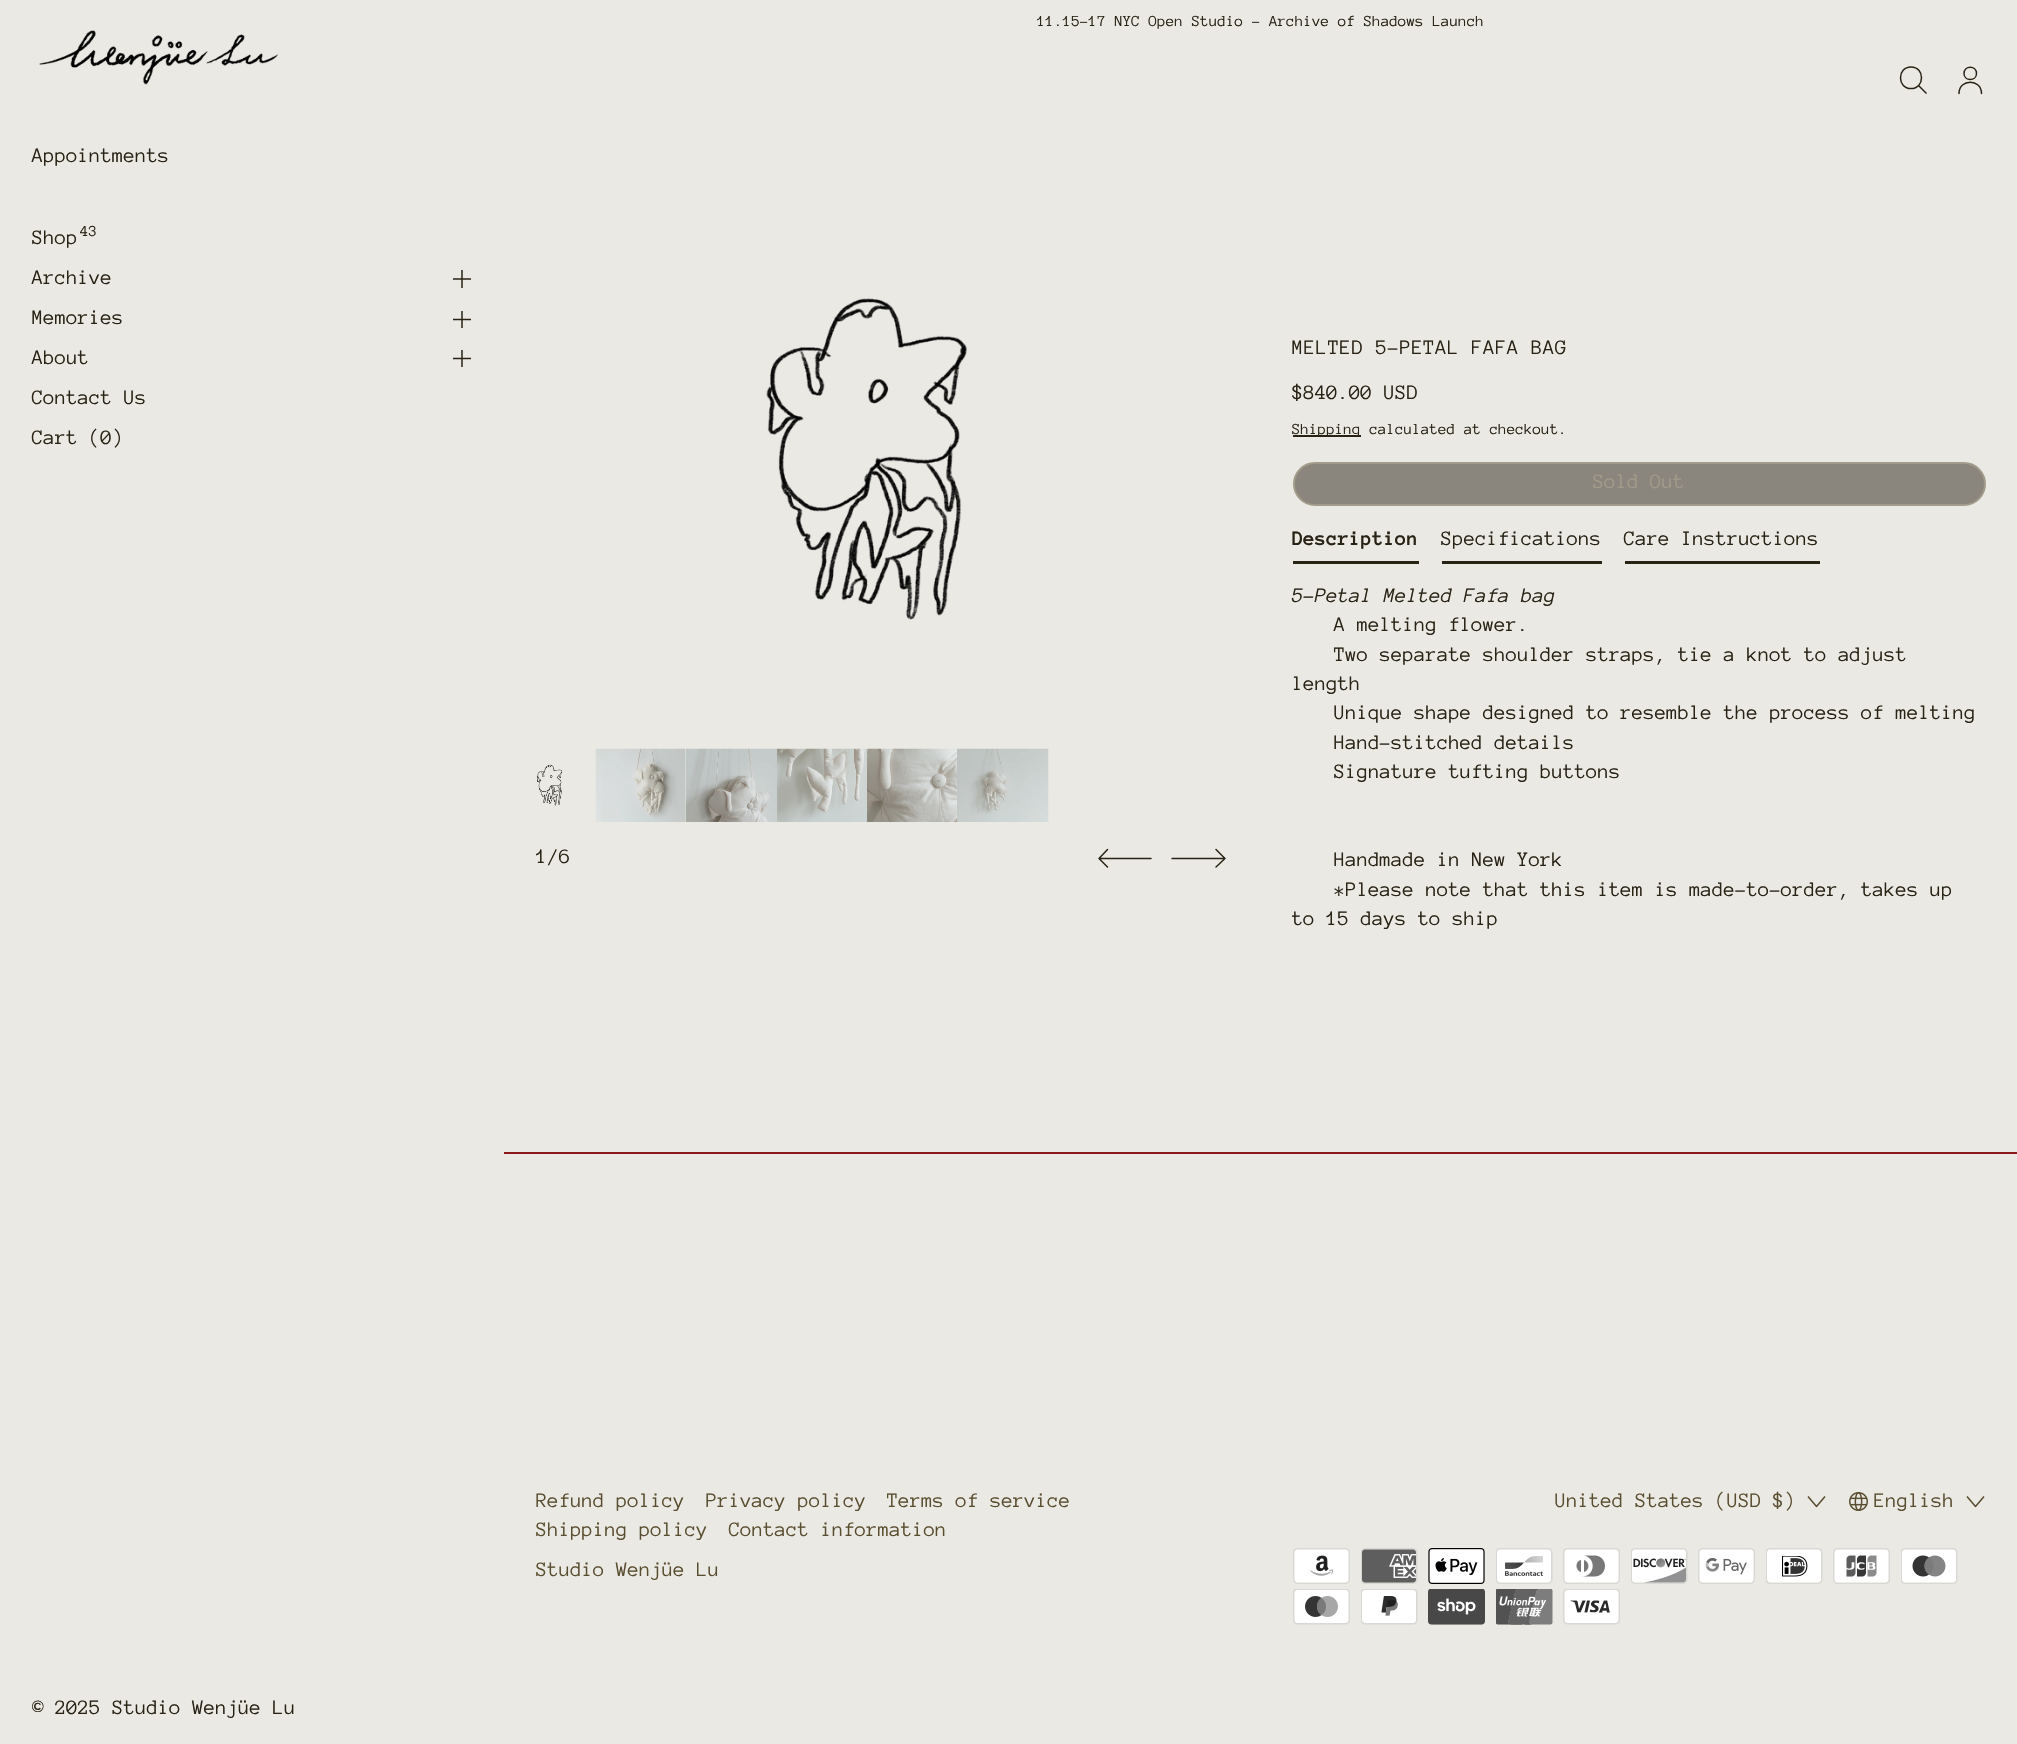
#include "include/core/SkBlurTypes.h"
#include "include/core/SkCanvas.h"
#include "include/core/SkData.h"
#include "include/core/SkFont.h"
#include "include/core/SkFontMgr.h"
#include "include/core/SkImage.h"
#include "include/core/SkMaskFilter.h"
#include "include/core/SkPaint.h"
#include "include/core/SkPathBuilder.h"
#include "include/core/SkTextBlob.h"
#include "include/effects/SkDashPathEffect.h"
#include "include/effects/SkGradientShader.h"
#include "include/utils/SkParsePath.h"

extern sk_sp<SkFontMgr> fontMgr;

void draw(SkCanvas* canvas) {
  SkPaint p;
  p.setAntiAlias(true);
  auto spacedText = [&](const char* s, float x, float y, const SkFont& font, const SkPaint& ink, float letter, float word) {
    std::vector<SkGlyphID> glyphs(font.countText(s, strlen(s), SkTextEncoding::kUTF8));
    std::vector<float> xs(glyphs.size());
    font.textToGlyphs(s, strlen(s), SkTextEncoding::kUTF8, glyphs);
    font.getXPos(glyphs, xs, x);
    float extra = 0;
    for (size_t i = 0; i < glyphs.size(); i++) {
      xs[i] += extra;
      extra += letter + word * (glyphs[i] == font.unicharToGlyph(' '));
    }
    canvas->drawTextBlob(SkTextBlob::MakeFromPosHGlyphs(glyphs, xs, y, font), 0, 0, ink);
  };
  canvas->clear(SkColorSetRGB(234, 233, 228));
  canvas->drawImageRect(SkImages::DeferredFromEncodedData(SkData::MakeFromFileName("images/1.png")), SkRect::MakeLTRB(39, 30, 278, 85), SkSamplingOptions());
  p.setStyle(SkPaint::kStroke_Style);
  p.setStrokeWidth(1.5f);
  p.setStrokeJoin(SkPaint::kRound_Join);
  p.setColor(SkColorSetRGB(41, 35, 21));
  canvas->drawPath(SkPathBuilder().moveTo(453, 279).lineTo(471, 279).moveTo(462, 270).lineTo(462, 288).moveTo(453, 319.5f).lineTo(471, 319.5f).moveTo(462, 311).lineTo(462, 328).detach(), p);
  canvas->drawPath(SkPathBuilder().moveTo(453, 358.5f).lineTo(471, 358.5f).moveTo(462, 350).lineTo(462, 367).detach(), p);
  p.setStrokeJoin(SkPaint::kMiter_Join);
  canvas->drawPath(SkPathBuilder().moveTo(1911, 88.5f).cubicTo(1925, 88.5f, 1925, 67, 1911, 67).cubicTo(1897, 67, 1897, 88.5f, 1911, 88.5f).close().moveTo(1918.5f, 85.5f).lineTo(1926.5f, 93.5f).detach(), p);
  p.setStrokeCap(SkPaint::kRound_Cap);
  p.setStrokeJoin(SkPaint::kRound_Join);
  canvas->drawPath(SkPathBuilder().moveTo(1964, 73.5f).cubicTo(1964, 81.5f, 1976.5f, 81.5f, 1976.5f, 73.5f).cubicTo(1976.5f, 65, 1964, 65, 1964, 73.5f).close().moveTo(1959, 93.5f).cubicTo(1959, 78.5f, 1981.5f, 78.5f, 1981.5f, 93.5f).detach(), p);
  p.setStyle(SkPaint::kFill_Style);
  p.setColor(SkColorSetRGB(140, 25, 25));
  canvas->drawRect(SkRect::MakeLTRB(504, 1152, 2017, 1154), p);
  canvas->drawImageRect(SkImages::DeferredFromEncodedData(SkData::MakeFromFileName("images/2.png")), SkRect::MakeLTRB(766, 298, 967, 620), SkSamplingOptions());
  canvas->drawImageRect(SkImages::DeferredFromEncodedData(SkData::MakeFromFileName("images/3.png")), SkRect::MakeLTRB(537, 764, 563, 806), SkSamplingOptions());
  canvas->drawImageRect(SkImages::DeferredFromEncodedData(SkData::MakeFromFileName("images/4.png")), SkRect::MakeLTRB(595, 748, 686, 822), SkSamplingOptions());
  canvas->drawImageRect(SkImages::DeferredFromEncodedData(SkData::MakeFromFileName("images/5.png")), SkRect::MakeLTRB(685, 748, 777, 822), SkSamplingOptions());
  canvas->drawImageRect(SkImages::DeferredFromEncodedData(SkData::MakeFromFileName("images/6.png")), SkRect::MakeLTRB(777, 748, 867, 822), SkSamplingOptions());
  canvas->drawImageRect(SkImages::DeferredFromEncodedData(SkData::MakeFromFileName("images/7.png")), SkRect::MakeLTRB(867, 748, 957, 822), SkSamplingOptions());
  canvas->drawImageRect(SkImages::DeferredFromEncodedData(SkData::MakeFromFileName("images/8.png")), SkRect::MakeLTRB(957, 748, 1049, 822), SkSamplingOptions());
  p.setStyle(SkPaint::kStroke_Style);
  p.setColor(SkColorSetRGB(41, 35, 21));
  canvas->drawPath(SkPathBuilder().moveTo(1151, 858.5f).lineTo(1099, 858.5f).moveTo(1107.5f, 867).lineTo(1099, 858.5f).lineTo(1107.5f, 849.5f).detach(), p);
  canvas->drawPath(SkPathBuilder().moveTo(1172, 858.5f).lineTo(1225, 858.5f).moveTo(1216, 849.5f).lineTo(1225, 858.5f).lineTo(1216, 867).detach(), p);
  p.setStyle(SkPaint::kFill_Style);
  canvas->drawRect(SkRect::MakeLTRB(1293, 435, 1361, 437), p);
  p.setColor(SkColorSetRGB(138, 134, 125));
  canvas->drawRoundRect(SkRect::MakeLTRB(1294, 463, 1985, 505), 21, 21, p);
  p.setStyle(SkPaint::kStroke_Style);
  p.setStrokeWidth(2);
  p.setStrokeCap(SkPaint::kButt_Cap);
  p.setStrokeJoin(SkPaint::kMiter_Join);
  p.setColor(SkColorSetRGB(162, 155, 138));
  canvas->drawRoundRect(SkRect::MakeLTRB(1294, 463, 1985, 505), 21, 21, p);
  p.setStyle(SkPaint::kFill_Style);
  p.setColor(SkColorSetRGB(41, 35, 21));
  canvas->drawRect(SkRect::MakeLTRB(1293, 561, 1419, 564), p);
  canvas->drawRect(SkRect::MakeLTRB(1442, 561, 1602, 564), p);
  canvas->drawRect(SkRect::MakeLTRB(1625, 561, 1820, 564), p);
  p.setStyle(SkPaint::kStroke_Style);
  p.setStrokeWidth(1.5f);
  p.setStrokeJoin(SkPaint::kRound_Join);
  p.setColor(SkColorSetRGB(89, 77, 47));
  canvas->drawPath(SkPathBuilder().moveTo(1808, 1496.5f).lineTo(1816.5f, 1506.5f).lineTo(1825, 1496.5f).detach(), p);
  canvas->drawImageRect(SkImages::DeferredFromEncodedData(SkData::MakeFromFileName("images/9.png")), SkRect::MakeLTRB(1849, 1492, 1868, 1511), SkSamplingOptions());
  canvas->drawPath(SkPathBuilder().moveTo(1967, 1496.5f).lineTo(1975.5f, 1506.5f).lineTo(1984, 1496.5f).detach(), p);
  canvas->drawImageRect(SkImages::DeferredFromEncodedData(SkData::MakeFromFileName("images/10.png")), SkRect::MakeLTRB(1293, 1548, 1350, 1584), SkSamplingOptions());
  canvas->drawImageRect(SkImages::DeferredFromEncodedData(SkData::MakeFromFileName("images/11.png")), SkRect::MakeLTRB(1361, 1548, 1418, 1584), SkSamplingOptions());
  canvas->drawImageRect(SkImages::DeferredFromEncodedData(SkData::MakeFromFileName("images/12.png")), SkRect::MakeLTRB(1428, 1548, 1485, 1584), SkSamplingOptions());
  canvas->drawImageRect(SkImages::DeferredFromEncodedData(SkData::MakeFromFileName("images/13.png")), SkRect::MakeLTRB(1496, 1548, 1553, 1584), SkSamplingOptions());
  canvas->drawImageRect(SkImages::DeferredFromEncodedData(SkData::MakeFromFileName("images/14.png")), SkRect::MakeLTRB(1563, 1548, 1620, 1584), SkSamplingOptions());
  canvas->drawImageRect(SkImages::DeferredFromEncodedData(SkData::MakeFromFileName("images/15.png")), SkRect::MakeLTRB(1631, 1548, 1688, 1584), SkSamplingOptions());
  canvas->drawImageRect(SkImages::DeferredFromEncodedData(SkData::MakeFromFileName("images/16.png")), SkRect::MakeLTRB(1698, 1548, 1755, 1584), SkSamplingOptions());
  canvas->drawImageRect(SkImages::DeferredFromEncodedData(SkData::MakeFromFileName("images/17.png")), SkRect::MakeLTRB(1766, 1548, 1823, 1584), SkSamplingOptions());
  canvas->drawImageRect(SkImages::DeferredFromEncodedData(SkData::MakeFromFileName("images/18.png")), SkRect::MakeLTRB(1833, 1548, 1890, 1584), SkSamplingOptions());
  canvas->drawImageRect(SkImages::DeferredFromEncodedData(SkData::MakeFromFileName("images/19.png")), SkRect::MakeLTRB(1901, 1548, 1958, 1584), SkSamplingOptions());
  canvas->drawImageRect(SkImages::DeferredFromEncodedData(SkData::MakeFromFileName("images/20.png")), SkRect::MakeLTRB(1293, 1589, 1350, 1625), SkSamplingOptions());
  canvas->drawImageRect(SkImages::DeferredFromEncodedData(SkData::MakeFromFileName("images/21.png")), SkRect::MakeLTRB(1361, 1589, 1418, 1625), SkSamplingOptions());
  canvas->drawImageRect(SkImages::DeferredFromEncodedData(SkData::MakeFromFileName("images/22.png")), SkRect::MakeLTRB(1428, 1589, 1485, 1625), SkSamplingOptions());
  canvas->drawImageRect(SkImages::DeferredFromEncodedData(SkData::MakeFromFileName("images/23.png")), SkRect::MakeLTRB(1496, 1589, 1553, 1625), SkSamplingOptions());
  canvas->drawImageRect(SkImages::DeferredFromEncodedData(SkData::MakeFromFileName("images/24.png")), SkRect::MakeLTRB(1563, 1589, 1620, 1625), SkSamplingOptions());
  SkFont font1(fontMgr->matchFamilyStyle("Anonymous Pro", SkFontStyle::Normal()), 21);
  font1.setSubpixel(true);
  p.setStyle(SkPaint::kFill_Style);
  p.setColor(SkColorSetRGB(41, 35, 21));
  canvas->drawString("Appointments", 32, 162, font1, p);
  canvas->drawString("Shop", 32, 244, font1, p);
  SkFont font2(fontMgr->matchFamilyStyle("Anonymous Pro", SkFontStyle::Normal()), 15.75f);
  font2.setSubpixel(true);
  canvas->drawString("43", 80, 236, font2, p);
  canvas->drawString("Archive", 32, 284, font1, p);
  canvas->drawString("Memories", 32, 324, font1, p);
  canvas->drawString("About", 32, 364, font1, p);
  canvas->drawString("Contact Us", 32, 404, font1, p);
  canvas->drawString("Cart (0)", 32, 444, font1, p);
  canvas->drawString("© 2025 Studio Wenjüe Lu", 32, 1714, font1, p);
  canvas->drawString("11.15-17 NYC Open Studio - Archive of Shadows Launch", 1037, 26, font2, p);
  canvas->drawString("1/6", 536, 863, font1, p);
  spacedText("MELTED 5-PETAL FAFA BAG", 1292, 354, font1, p, 0.5f, 0);
  canvas->drawString("$840.00 USD", 1292, 399, font1, p);
  canvas->drawString("Shipping calculated at checkout.", 1292, 434, font2, p);
  p.setColor(SkColorSetRGB(162, 155, 138));
  canvas->drawString("Sold Out", 1593, 488, font1, p);
  SkFont font3(fontMgr->matchFamilyStyle("Anonymous Pro", SkFontStyle::Bold()), 21);
  font3.setSubpixel(true);
  p.setColor(SkColorSetRGB(41, 35, 21));
  canvas->drawString("Description", 1292, 545, font3, p);
  canvas->drawString("Specifications", 1441, 545, font1, p);
  canvas->drawString("Care Instructions", 1624, 545, font1, p);
  SkFont font4(fontMgr->matchFamilyStyle("Anonymous Pro", SkFontStyle::Italic()), 21);
  font4.setSubpixel(true);
  canvas->drawString("5-Petal Melted Fafa bag", 1292, 602, font4, p);
  canvas->drawString("A melting flower.", 1334, 631, font1, p);
  canvas->drawString("Two separate shoulder straps, tie a knot to adjust", 1334, 661, font1, p);
  canvas->drawString("length", 1292, 690, font1, p);
  canvas->drawString("Unique shape designed to resemble the process of melting", 1334, 719, font1, p);
  canvas->drawString("Hand-stitched details", 1334, 749, font1, p);
  canvas->drawString("Signature tufting buttons", 1334, 778, font1, p);
  canvas->drawString("Handmade in New York", 1334, 866, font1, p);
  canvas->drawString("*Please note that this item is made-to-order, takes up", 1334, 896, font1, p);
  canvas->drawString("to 15 days to ship", 1292, 925, font1, p);
  p.setColor(SkColorSetRGB(89, 77, 47));
  canvas->drawString("Refund policy", 536, 1507, font1, p);
  canvas->drawString("Privacy policy", 706, 1507, font1, p);
  canvas->drawString("Terms of service", 887, 1507, font1, p);
  canvas->drawString("Shipping policy", 536, 1536, font1, p);
  canvas->drawString("Contact information", 729, 1536, font1, p);
  canvas->drawString("Studio Wenjüe Lu", 536, 1576, font1, p);
  canvas->drawString("United States (USD $)", 1555, 1507, font1, p);
  canvas->drawString("English", 1874, 1507, font1, p);
}
